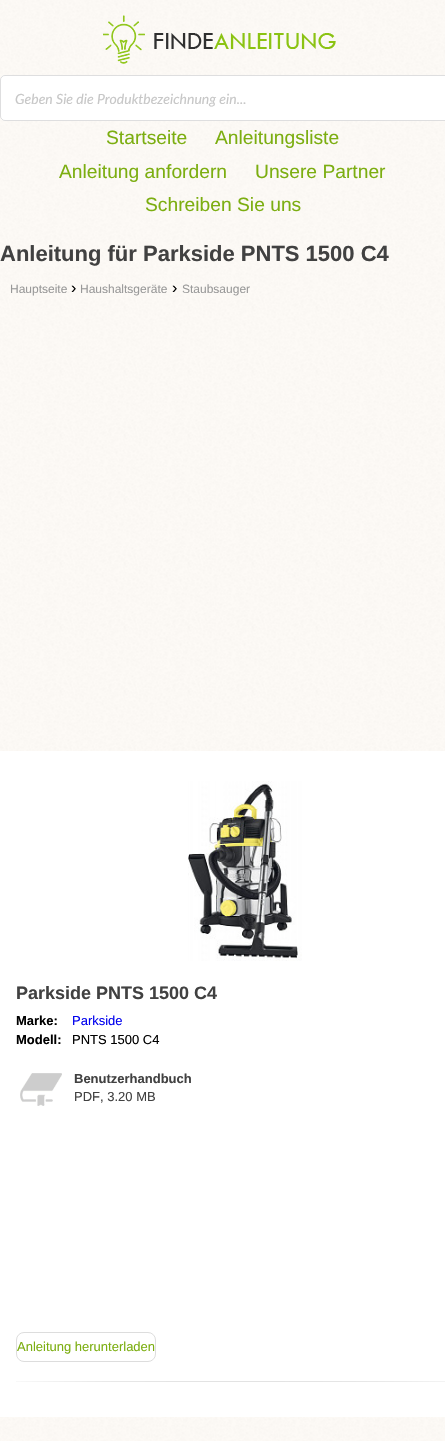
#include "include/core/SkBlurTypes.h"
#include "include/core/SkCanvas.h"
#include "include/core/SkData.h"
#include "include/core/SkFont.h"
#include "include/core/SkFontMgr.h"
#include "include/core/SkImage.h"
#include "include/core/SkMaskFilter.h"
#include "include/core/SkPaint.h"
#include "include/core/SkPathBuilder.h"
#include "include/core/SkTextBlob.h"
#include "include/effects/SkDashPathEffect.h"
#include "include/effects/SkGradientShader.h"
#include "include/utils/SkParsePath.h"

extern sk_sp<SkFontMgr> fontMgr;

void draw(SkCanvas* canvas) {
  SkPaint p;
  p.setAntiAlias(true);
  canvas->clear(SK_ColorWHITE);
  canvas->drawImageRect(SkImages::DeferredFromEncodedData(SkData::MakeFromFileName("images/1.png")), SkRect::MakeLTRB(0, 0, 445, 1441), SkSamplingOptions());
  canvas->drawImageRect(SkImages::DeferredFromEncodedData(SkData::MakeFromFileName("images/2.png")), SkRect::MakeLTRB(103, 15, 336, 64), SkSamplingOptions());
  p.setColor(SK_ColorWHITE);
  canvas->drawPath(SkPathBuilder().moveTo(5, 75).lineTo(445, 75).lineTo(445, 121).lineTo(5, 121).cubicTo(2, 121, 0, 119, 0, 116).lineTo(0, 80).cubicTo(0, 77, 2, 75, 5, 75).close().detach(), p);
  p.setStyle(SkPaint::kStroke_Style);
  p.setStrokeWidth(1);
  p.setColor(SkColorSetARGB(38, 34, 36, 38));
  canvas->drawRoundRect(SkRect::MakeLTRB(0.5f, 75.5f, 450.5f, 120.5f), 4.5f, 4.5f, p);
  p.setStyle(SkPaint::kFill_Style);
  p.setColor(SK_ColorWHITE);
  canvas->drawRect(SkRect::MakeLTRB(0, 751, 445, 1417), p);
  canvas->drawImageRect(SkImages::DeferredFromEncodedData(SkData::MakeFromFileName("images/3.png")), SkRect::MakeLTRB(16, 1381, 445, 1382), SkSamplingOptions());
  canvas->drawImageRect(SkImages::DeferredFromEncodedData(SkData::MakeFromFileName("images/4.png")), SkRect::MakeLTRB(188, 781, 302, 961), SkSamplingOptions());
  canvas->drawImageRect(SkImages::DeferredFromEncodedData(SkData::MakeFromFileName("images/5.png")), SkRect::MakeLTRB(20, 1073, 62, 1106), SkSamplingOptions());
  p.setStyle(SkPaint::kStroke_Style);
  p.setColor(SkColorSetRGB(221, 221, 221));
  canvas->drawRoundRect(SkRect::MakeLTRB(16.5f, 1332.5f, 155.5f, 1361.5f), 7.5f, 7.5f, p);
  SkFont font1(fontMgr->matchFamilyStyle("Lato", SkFontStyle::Italic()), 14);
  font1.setSubpixel(true);
  p.setStyle(SkPaint::kFill_Style);
  p.setColor(SkColorSetRGB(199, 199, 199));
  canvas->drawString("Geben Sie die Produktbezeichnung ein...", 15, 104, font1, p);
  SkFont font2(fontMgr->matchFamilyStyle("Liberation Sans", SkFontStyle::Normal()), 19.25f);
  font2.setSubpixel(true);
  p.setColor(SkColorSetRGB(124, 174, 17));
  canvas->drawString("Startseite", 106, 144, font2, p);
  canvas->drawString("Anleitungsliste", 215, 144, font2, p);
  canvas->drawString("Anleitung anfordern", 59, 178, font2, p);
  canvas->drawString("Unsere Partner", 255, 178, font2, p);
  canvas->drawString("Schreiben Sie uns", 145, 211, font2, p);
  SkFont font3(fontMgr->matchFamilyStyle("Liberation Sans", SkFontStyle::Bold()), 22);
  font3.setSubpixel(true);
  p.setColor(SkColorSetRGB(65, 65, 65));
  canvas->drawString("Anleitung für Parkside PNTS 1500 C4", 0, 261, font3, p);
  SkFont font4(fontMgr->matchFamilyStyle("Liberation Sans", SkFontStyle::Normal()), 12);
  font4.setSubpixel(true);
  p.setColor(SkColorSetRGB(153, 153, 153));
  canvas->drawString("Hauptseite", 10, 293, font4, p);
  SkFont font5(fontMgr->matchFamilyStyle("Liberation Sans", SkFontStyle::Normal()), 16);
  font5.setSubpixel(true);
  p.setColor(SK_ColorBLACK);
  canvas->drawString("›", 71, 293, font5, p);
  p.setColor(SkColorSetRGB(153, 153, 153));
  canvas->drawString("Haushaltsgeräte", 80, 293, font4, p);
  p.setColor(SK_ColorBLACK);
  canvas->drawString("›", 172, 293, font5, p);
  p.setColor(SkColorSetRGB(153, 153, 153));
  canvas->drawString("Staubsauger", 182, 293, font4, p);
  SkFont font6(fontMgr->matchFamilyStyle("Liberation Sans", SkFontStyle::Bold()), 18);
  font6.setSubpixel(true);
  p.setColor(SkColorSetRGB(65, 65, 65));
  canvas->drawString("Parkside PNTS 1500 C4", 16, 999, font6, p);
  SkFont font7(fontMgr->matchFamilyStyle("Liberation Sans", SkFontStyle::Bold()), 13);
  font7.setSubpixel(true);
  p.setColor(SK_ColorBLACK);
  canvas->drawString("Marke:", 16, 1025, font7, p);
  SkFont font8(fontMgr->matchFamilyStyle("Liberation Sans", SkFontStyle::Normal()), 13);
  font8.setSubpixel(true);
  p.setColor(SkColorSetRGB(0, 0, 238));
  canvas->drawString("Parkside", 72, 1025, font8, p);
  p.setColor(SK_ColorBLACK);
  canvas->drawString("Modell:", 16, 1044, font7, p);
  canvas->drawString("PNTS 1500 C4", 72, 1044, font8, p);
  p.setColor(SkColorSetRGB(65, 65, 65));
  canvas->drawString("Benutzerhandbuch", 74, 1083, font7, p);
  canvas->drawString("PDF, 3.20 MB", 74, 1101, font8, p);
  p.setColor(SkColorSetRGB(124, 174, 17));
  canvas->drawString("Anleitung herunterladen", 17, 1351, font8, p);
}
